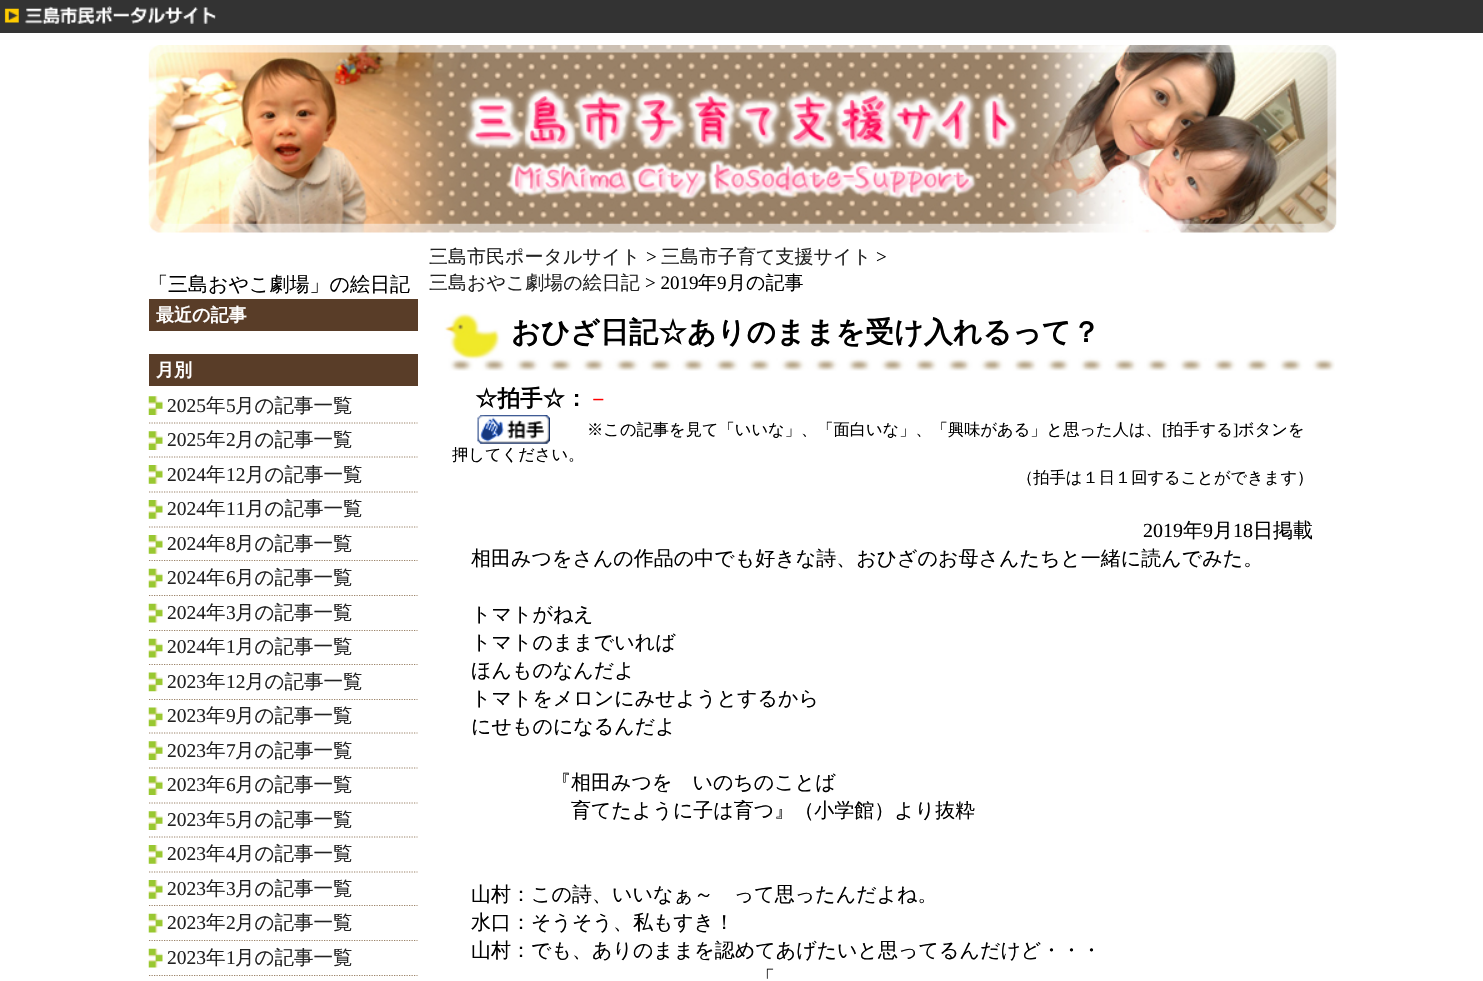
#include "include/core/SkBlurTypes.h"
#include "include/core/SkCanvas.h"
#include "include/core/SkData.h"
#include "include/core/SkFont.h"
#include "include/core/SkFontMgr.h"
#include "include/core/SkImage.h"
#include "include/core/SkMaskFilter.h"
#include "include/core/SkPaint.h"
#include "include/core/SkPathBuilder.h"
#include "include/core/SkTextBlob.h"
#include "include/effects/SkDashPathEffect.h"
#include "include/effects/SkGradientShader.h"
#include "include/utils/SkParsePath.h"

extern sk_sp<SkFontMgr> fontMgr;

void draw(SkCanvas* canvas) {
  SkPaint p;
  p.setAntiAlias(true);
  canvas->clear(SK_ColorWHITE);
  p.setColor(SkColorSetRGB(51, 51, 51));
  canvas->drawRect(SkRect::MakeLTRB(0, 0, 1483, 33), p);
  canvas->drawImageRect(SkImages::DeferredFromEncodedData(SkData::MakeFromFileName("images/1.png")), SkRect::MakeLTRB(4, 6, 216, 24), SkSamplingOptions());
  canvas->drawImageRect(SkImages::DeferredFromEncodedData(SkData::MakeFromFileName("images/2.png")), SkRect::MakeLTRB(148, 45, 1337, 233), SkSamplingOptions());
  p.setColor(SkColorSetRGB(89, 61, 40));
  canvas->drawRect(SkRect::MakeLTRB(149, 299, 418, 331), p);
  canvas->drawRect(SkRect::MakeLTRB(149, 354, 418, 386), p);
  canvas->drawImageRect(SkImages::DeferredFromEncodedData(SkData::MakeFromFileName("images/3.png")), SkRect::MakeLTRB(148, 396, 163, 415), SkSamplingOptions());
  p.setStyle(SkPaint::kStroke_Style);
  p.setStrokeWidth(1.2f);
  p.setColor(SkColorSetRGB(155, 131, 105));
  p.setPathEffect(SkDashPathEffect::Make({{1.25f, 1.25f}}, 0));
  canvas->drawPath(SkPathBuilder().moveTo(149, 423).lineTo(417.5f, 423).detach(), p);
  p.setPathEffect(nullptr);
  canvas->drawImageRect(SkImages::DeferredFromEncodedData(SkData::MakeFromFileName("images/3.png")), SkRect::MakeLTRB(148, 431, 163, 450), SkSamplingOptions());
  p.setPathEffect(SkDashPathEffect::Make({{1.25f, 1.25f}}, 0));
  canvas->drawPath(SkPathBuilder().moveTo(149, 457).lineTo(417.5f, 457).detach(), p);
  p.setPathEffect(nullptr);
  canvas->drawImageRect(SkImages::DeferredFromEncodedData(SkData::MakeFromFileName("images/4.png")), SkRect::MakeLTRB(148, 465, 163, 484), SkSamplingOptions());
  p.setPathEffect(SkDashPathEffect::Make({{1.25f, 1.25f}}, 0));
  canvas->drawPath(SkPathBuilder().moveTo(149, 492).lineTo(417.5f, 492).detach(), p);
  p.setPathEffect(nullptr);
  canvas->drawImageRect(SkImages::DeferredFromEncodedData(SkData::MakeFromFileName("images/4.png")), SkRect::MakeLTRB(148, 500, 163, 519), SkSamplingOptions());
  p.setPathEffect(SkDashPathEffect::Make({{1.25f, 1.25f}}, 0));
  canvas->drawPath(SkPathBuilder().moveTo(149, 527).lineTo(417.5f, 527).detach(), p);
  p.setPathEffect(nullptr);
  canvas->drawImageRect(SkImages::DeferredFromEncodedData(SkData::MakeFromFileName("images/4.png")), SkRect::MakeLTRB(148, 535, 163, 554), SkSamplingOptions());
  p.setPathEffect(SkDashPathEffect::Make({{1.25f, 1.25f}}, 0));
  canvas->drawPath(SkPathBuilder().moveTo(149, 560.5f).lineTo(417.5f, 560.5f).detach(), p);
  p.setPathEffect(nullptr);
  canvas->drawImageRect(SkImages::DeferredFromEncodedData(SkData::MakeFromFileName("images/5.png")), SkRect::MakeLTRB(148, 568, 163, 588), SkSamplingOptions());
  p.setPathEffect(SkDashPathEffect::Make({{1.25f, 1.25f}}, 0));
  canvas->drawPath(SkPathBuilder().moveTo(149, 595.5f).lineTo(417.5f, 595.5f).detach(), p);
  p.setPathEffect(nullptr);
  canvas->drawImageRect(SkImages::DeferredFromEncodedData(SkData::MakeFromFileName("images/5.png")), SkRect::MakeLTRB(148, 603, 163, 623), SkSamplingOptions());
  p.setPathEffect(SkDashPathEffect::Make({{1.25f, 1.25f}}, 0));
  canvas->drawPath(SkPathBuilder().moveTo(149, 630.5f).lineTo(417.5f, 630.5f).detach(), p);
  p.setPathEffect(nullptr);
  canvas->drawImageRect(SkImages::DeferredFromEncodedData(SkData::MakeFromFileName("images/5.png")), SkRect::MakeLTRB(148, 638, 163, 658), SkSamplingOptions());
  p.setPathEffect(SkDashPathEffect::Make({{1.25f, 1.25f}}, 0));
  canvas->drawPath(SkPathBuilder().moveTo(149, 664.5f).lineTo(417.5f, 664.5f).detach(), p);
  p.setPathEffect(nullptr);
  canvas->drawImageRect(SkImages::DeferredFromEncodedData(SkData::MakeFromFileName("images/6.png")), SkRect::MakeLTRB(148, 672, 163, 692), SkSamplingOptions());
  p.setPathEffect(SkDashPathEffect::Make({{1.25f, 1.25f}}, 0));
  canvas->drawPath(SkPathBuilder().moveTo(149, 699.5f).lineTo(417.5f, 699.5f).detach(), p);
  p.setPathEffect(nullptr);
  canvas->drawImageRect(SkImages::DeferredFromEncodedData(SkData::MakeFromFileName("images/6.png")), SkRect::MakeLTRB(148, 707, 163, 727), SkSamplingOptions());
  p.setPathEffect(SkDashPathEffect::Make({{1.25f, 1.25f}}, 0));
  canvas->drawPath(SkPathBuilder().moveTo(149, 733).lineTo(417.5f, 733).detach(), p);
  p.setPathEffect(nullptr);
  canvas->drawImageRect(SkImages::DeferredFromEncodedData(SkData::MakeFromFileName("images/3.png")), SkRect::MakeLTRB(148, 741, 163, 760), SkSamplingOptions());
  p.setPathEffect(SkDashPathEffect::Make({{1.25f, 1.25f}}, 0));
  canvas->drawPath(SkPathBuilder().moveTo(149, 768).lineTo(417.5f, 768).detach(), p);
  p.setPathEffect(nullptr);
  canvas->drawImageRect(SkImages::DeferredFromEncodedData(SkData::MakeFromFileName("images/7.png")), SkRect::MakeLTRB(148, 776, 163, 795), SkSamplingOptions());
  p.setPathEffect(SkDashPathEffect::Make({{1.25f, 1.25f}}, 0));
  canvas->drawPath(SkPathBuilder().moveTo(149, 803).lineTo(417.5f, 803).detach(), p);
  p.setPathEffect(nullptr);
  canvas->drawImageRect(SkImages::DeferredFromEncodedData(SkData::MakeFromFileName("images/3.png")), SkRect::MakeLTRB(148, 811, 163, 830), SkSamplingOptions());
  p.setPathEffect(SkDashPathEffect::Make({{1.25f, 1.25f}}, 0));
  canvas->drawPath(SkPathBuilder().moveTo(149, 837).lineTo(417.5f, 837).detach(), p);
  p.setPathEffect(nullptr);
  canvas->drawImageRect(SkImages::DeferredFromEncodedData(SkData::MakeFromFileName("images/4.png")), SkRect::MakeLTRB(148, 845, 163, 864), SkSamplingOptions());
  p.setPathEffect(SkDashPathEffect::Make({{1.25f, 1.25f}}, 0));
  canvas->drawPath(SkPathBuilder().moveTo(149, 872).lineTo(417.5f, 872).detach(), p);
  p.setPathEffect(nullptr);
  canvas->drawImageRect(SkImages::DeferredFromEncodedData(SkData::MakeFromFileName("images/4.png")), SkRect::MakeLTRB(148, 880, 163, 899), SkSamplingOptions());
  p.setPathEffect(SkDashPathEffect::Make({{1.25f, 1.25f}}, 0));
  canvas->drawPath(SkPathBuilder().moveTo(149, 905.5f).lineTo(417.5f, 905.5f).detach(), p);
  p.setPathEffect(nullptr);
  canvas->drawImageRect(SkImages::DeferredFromEncodedData(SkData::MakeFromFileName("images/5.png")), SkRect::MakeLTRB(148, 913, 163, 933), SkSamplingOptions());
  p.setPathEffect(SkDashPathEffect::Make({{1.25f, 1.25f}}, 0));
  canvas->drawPath(SkPathBuilder().moveTo(149, 940.5f).lineTo(417.5f, 940.5f).detach(), p);
  p.setPathEffect(nullptr);
  canvas->drawImageRect(SkImages::DeferredFromEncodedData(SkData::MakeFromFileName("images/5.png")), SkRect::MakeLTRB(148, 948, 163, 968), SkSamplingOptions());
  p.setPathEffect(SkDashPathEffect::Make({{1.25f, 1.25f}}, 0));
  canvas->drawPath(SkPathBuilder().moveTo(149, 975.5f).lineTo(417.5f, 975.5f).detach(), p);
  p.setPathEffect(nullptr);
  canvas->drawImageRect(SkImages::DeferredFromEncodedData(SkData::MakeFromFileName("images/8.png")), SkRect::MakeLTRB(444, 313, 1335, 371), SkSamplingOptions());
  canvas->drawImageRect(SkImages::DeferredFromEncodedData(SkData::MakeFromFileName("images/9.png")), SkRect::MakeLTRB(477, 415, 550, 444), SkSamplingOptions());
  SkFont font1(fontMgr->matchFamilyStyle("WenQuanYi Zen Hei", SkFontStyle(500, SkFontStyle::kNormal_Width, SkFontStyle::kUpright_Slant)), 19);
  font1.setSubpixel(true);
  p.setStyle(SkPaint::kFill_Style);
  p.setColor(SkColorSetRGB(34, 34, 34));
  canvas->drawString("三島市民ポータルサイト", 429, 263, font1, p);
  SkFont font2(fontMgr->matchFamilyStyle("Liberation Serif", SkFontStyle::Normal()), 19);
  font2.setSubpixel(true);
  p.setColor(SK_ColorBLACK);
  canvas->drawString(">", 646, 263, font2, p);
  p.setColor(SkColorSetRGB(34, 34, 34));
  canvas->drawString("三島市子育て支援サイト", 661, 263, font1, p);
  p.setColor(SK_ColorBLACK);
  canvas->drawString(">", 876, 263, font2, p);
  p.setColor(SkColorSetRGB(34, 34, 34));
  canvas->drawString("三島おやこ劇場の絵日記", 429, 289, font1, p);
  p.setColor(SK_ColorBLACK);
  canvas->drawString("> 2019", 645, 289, font2, p);
  canvas->drawString("年", 698, 289, font1, p);
  canvas->drawString("9", 717, 289, font2, p);
  canvas->drawString("月の記事", 727, 289, font1, p);
  SkFont font3(fontMgr->matchFamilyStyle("WenQuanYi Zen Hei", SkFontStyle(500, SkFontStyle::kNormal_Width, SkFontStyle::kUpright_Slant)), 20);
  font3.setSubpixel(true);
  canvas->drawString("「三島おやこ劇場」の絵日記", 148, 291, font3, p);
  SkFont font4(fontMgr->matchFamilyStyle("WenQuanYi Zen Hei", SkFontStyle::Bold()), 18);
  font4.setSubpixel(true);
  p.setColor(SK_ColorWHITE);
  canvas->drawString("最近の記事", 156, 321, font4, p);
  canvas->drawString("月別", 156, 376, font4, p);
  SkFont font5(fontMgr->matchFamilyStyle("Liberation Serif", SkFontStyle::Normal()), 19.5f);
  font5.setSubpixel(true);
  p.setColor(SkColorSetRGB(34, 34, 34));
  canvas->drawString("2025", 167, 412, font5, p);
  SkFont font6(fontMgr->matchFamilyStyle("WenQuanYi Zen Hei", SkFontStyle(500, SkFontStyle::kNormal_Width, SkFontStyle::kUpright_Slant)), 19.5f);
  font6.setSubpixel(true);
  canvas->drawString("年", 206, 412, font6, p);
  canvas->drawString("5", 226, 412, font5, p);
  canvas->drawString("月の記事一覧", 235, 412, font6, p);
  canvas->drawString("2025", 167, 446, font5, p);
  canvas->drawString("年", 206, 446, font6, p);
  canvas->drawString("2", 226, 446, font5, p);
  canvas->drawString("月の記事一覧", 235, 446, font6, p);
  canvas->drawString("2024", 167, 481, font5, p);
  canvas->drawString("年", 206, 481, font6, p);
  canvas->drawString("12", 226, 481, font5, p);
  canvas->drawString("月の記事一覧", 245, 481, font6, p);
  canvas->drawString("2024", 167, 515, font5, p);
  canvas->drawString("年", 206, 515, font6, p);
  canvas->drawString("11", 226, 515, font5, p);
  canvas->drawString("月の記事一覧", 245, 515, font6, p);
  canvas->drawString("2024", 167, 550, font5, p);
  canvas->drawString("年", 206, 550, font6, p);
  canvas->drawString("8", 226, 550, font5, p);
  canvas->drawString("月の記事一覧", 235, 550, font6, p);
  canvas->drawString("2024", 167, 584, font5, p);
  canvas->drawString("年", 206, 584, font6, p);
  canvas->drawString("6", 226, 584, font5, p);
  canvas->drawString("月の記事一覧", 235, 584, font6, p);
  canvas->drawString("2024", 167, 619, font5, p);
  canvas->drawString("年", 206, 619, font6, p);
  canvas->drawString("3", 226, 619, font5, p);
  canvas->drawString("月の記事一覧", 235, 619, font6, p);
  canvas->drawString("2024", 167, 653, font5, p);
  canvas->drawString("年", 206, 653, font6, p);
  canvas->drawString("1", 226, 653, font5, p);
  canvas->drawString("月の記事一覧", 235, 653, font6, p);
  canvas->drawString("2023", 167, 688, font5, p);
  canvas->drawString("年", 206, 688, font6, p);
  canvas->drawString("12", 226, 688, font5, p);
  canvas->drawString("月の記事一覧", 245, 688, font6, p);
  canvas->drawString("2023", 167, 722, font5, p);
  canvas->drawString("年", 206, 722, font6, p);
  canvas->drawString("9", 226, 722, font5, p);
  canvas->drawString("月の記事一覧", 235, 722, font6, p);
  canvas->drawString("2023", 167, 757, font5, p);
  canvas->drawString("年", 206, 757, font6, p);
  canvas->drawString("7", 226, 757, font5, p);
  canvas->drawString("月の記事一覧", 235, 757, font6, p);
  canvas->drawString("2023", 167, 791, font5, p);
  canvas->drawString("年", 206, 791, font6, p);
  canvas->drawString("6", 226, 791, font5, p);
  canvas->drawString("月の記事一覧", 235, 791, font6, p);
  canvas->drawString("2023", 167, 826, font5, p);
  canvas->drawString("年", 206, 826, font6, p);
  canvas->drawString("5", 226, 826, font5, p);
  canvas->drawString("月の記事一覧", 235, 826, font6, p);
  canvas->drawString("2023", 167, 860, font5, p);
  canvas->drawString("年", 206, 860, font6, p);
  canvas->drawString("4", 226, 860, font5, p);
  canvas->drawString("月の記事一覧", 235, 860, font6, p);
  canvas->drawString("2023", 167, 895, font5, p);
  canvas->drawString("年", 206, 895, font6, p);
  canvas->drawString("3", 226, 895, font5, p);
  canvas->drawString("月の記事一覧", 235, 895, font6, p);
  canvas->drawString("2023", 167, 929, font5, p);
  canvas->drawString("年", 206, 929, font6, p);
  canvas->drawString("2", 226, 929, font5, p);
  canvas->drawString("月の記事一覧", 235, 929, font6, p);
  canvas->drawString("2023", 167, 964, font5, p);
  canvas->drawString("年", 206, 964, font6, p);
  canvas->drawString("1", 226, 964, font5, p);
  canvas->drawString("月の記事一覧", 235, 964, font6, p);
  SkFont font7(fontMgr->matchFamilyStyle("WenQuanYi Zen Hei", SkFontStyle::Bold()), 29);
  font7.setSubpixel(true);
  p.setColor(SK_ColorBLACK);
  canvas->drawString("おひざ日記☆ありのままを受け入れるって？", 511, 342, font7, p);
  SkFont font8(fontMgr->matchFamilyStyle("WenQuanYi Zen Hei", SkFontStyle::Bold()), 22.5f);
  font8.setSubpixel(true);
  canvas->drawString("☆拍手☆：", 475, 406, font8, p);
  SkFont font9(fontMgr->matchFamilyStyle("WenQuanYi Zen Hei", SkFontStyle(500, SkFontStyle::kNormal_Width, SkFontStyle::kUpright_Slant)), 22.5f);
  font9.setSubpixel(true);
  p.setColor(SkColorSetRGB(255, 0, 0));
  canvas->drawString("－", 587, 406, font9, p);
  SkFont font10(fontMgr->matchFamilyStyle("WenQuanYi Zen Hei", SkFontStyle(500, SkFontStyle::kNormal_Width, SkFontStyle::kUpright_Slant)), 16.25f);
  font10.setSubpixel(true);
  p.setColor(SK_ColorBLACK);
  canvas->drawString("※この記事を見て「いいな」、「面白いな」、「興味がある」と思った人は、", 587, 435, font10, p);
  SkFont font11(fontMgr->matchFamilyStyle("Liberation Serif", SkFontStyle::Normal()), 16.25f);
  font11.setSubpixel(true);
  canvas->drawString("[", 1162, 435, font11, p);
  canvas->drawString("拍手する", 1167, 435, font10, p);
  canvas->drawString("]", 1233, 435, font11, p);
  canvas->drawString("ボタンを", 1238, 435, font10, p);
  canvas->drawString("押してください。", 452, 460, font10, p);
  canvas->drawString("（拍手は１日１回することができます）", 1017, 483, font10, p);
  SkFont font12(fontMgr->matchFamilyStyle("Liberation Serif", SkFontStyle::Normal()), 20);
  font12.setSubpixel(true);
  canvas->drawString("2019", 1143, 537, font12, p);
  canvas->drawString("年", 1183, 537, font3, p);
  canvas->drawString("9", 1203, 537, font12, p);
  canvas->drawString("月", 1213, 537, font3, p);
  canvas->drawString("18", 1233, 537, font12, p);
  canvas->drawString("日掲載", 1253, 537, font3, p);
  canvas->drawString("相田みつをさんの作品の中でも好きな詩、おひざのお母さんたちと一緒に読んでみた。", 471, 565, font3, p);
  canvas->drawString("トマトがねえ", 471, 621, font3, p);
  canvas->drawString("トマトのままでいれば", 471, 649, font3, p);
  canvas->drawString("ほんものなんだよ", 471, 677, font3, p);
  canvas->drawString("トマトをメロンにみせようとするから", 471, 705, font3, p);
  canvas->drawString("にせものになるんだよ", 471, 733, font3, p);
  canvas->drawString("『相田みつを　いのちのことば", 551, 789, font3, p);
  canvas->drawString("育てたように子は育つ』（小学館）より抜粋", 571, 817, font3, p);
  canvas->drawString("山村：この詩、いいなぁ～　って思ったんだよね。", 471, 901, font3, p);
  canvas->drawString("水口：そうそう、私もすき！", 471, 929, font3, p);
  canvas->drawString("山村：でも、ありのままを認めてあげたいと思ってるんだけど・・・", 471, 957, font3, p);
  canvas->drawString("「", 755, 985, font3, p);
}
